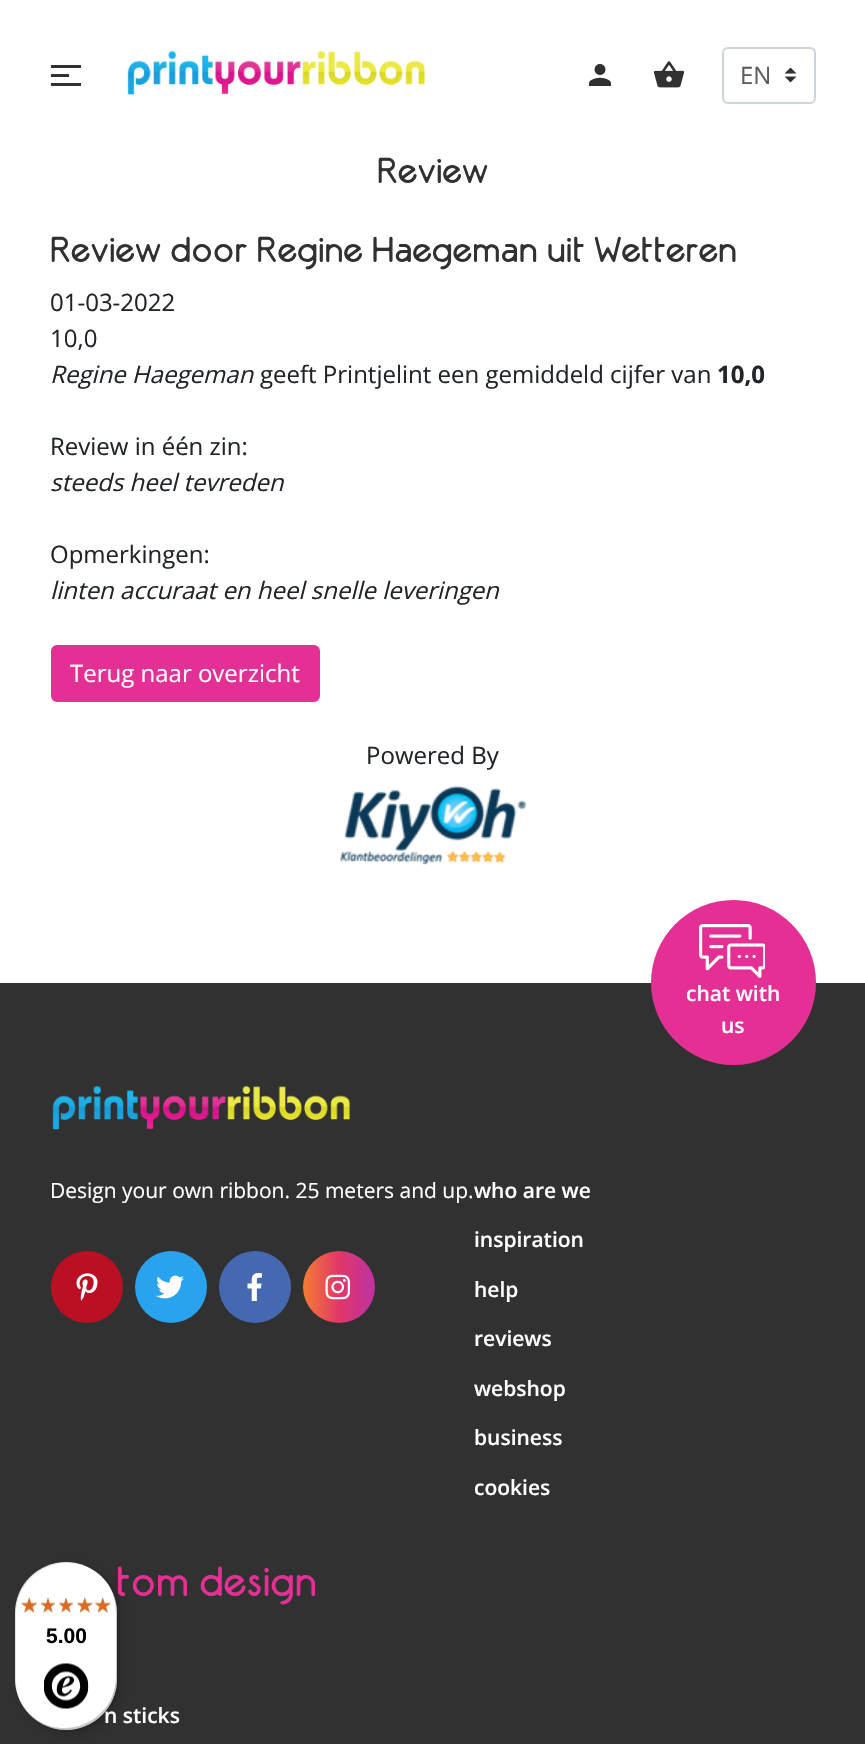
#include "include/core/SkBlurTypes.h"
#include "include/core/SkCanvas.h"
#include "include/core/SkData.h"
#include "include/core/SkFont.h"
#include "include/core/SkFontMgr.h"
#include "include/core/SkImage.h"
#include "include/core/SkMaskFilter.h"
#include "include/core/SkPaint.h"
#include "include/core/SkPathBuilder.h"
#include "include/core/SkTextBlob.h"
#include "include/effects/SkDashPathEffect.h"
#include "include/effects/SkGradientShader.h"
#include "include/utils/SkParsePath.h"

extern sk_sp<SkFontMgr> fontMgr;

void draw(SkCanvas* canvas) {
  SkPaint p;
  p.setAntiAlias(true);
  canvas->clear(SK_ColorWHITE);
  p.setColor(SkColorSetRGB(49, 49, 49));
  canvas->drawRect(SkRect::MakeLTRB(51, 65, 81, 68), p);
  canvas->drawRect(SkRect::MakeLTRB(51, 74, 69, 77), p);
  canvas->drawRect(SkRect::MakeLTRB(51, 83, 81, 86), p);
  canvas->drawImageRect(SkImages::DeferredFromEncodedData(SkData::MakeFromFileName("images/1.png")), SkRect::MakeLTRB(127, 50, 426, 95), SkSamplingOptions());
  canvas->drawImageRect(SkImages::DeferredFromEncodedData(SkData::MakeFromFileName("images/2.png")), SkRect::MakeLTRB(588, 64, 612, 86), SkSamplingOptions());
  canvas->drawImageRect(SkImages::DeferredFromEncodedData(SkData::MakeFromFileName("images/3.png")), SkRect::MakeLTRB(653, 61, 685, 88), SkSamplingOptions());
  canvas->drawImageRect(SkImages::DeferredFromEncodedData(SkData::MakeFromFileName("images/4.png")), SkRect::MakeLTRB(785, 68, 797, 83), SkSamplingOptions());
  p.setStyle(SkPaint::kStroke_Style);
  p.setStrokeWidth(2);
  p.setColor(SkColorSetRGB(206, 212, 218));
  canvas->drawRoundRect(SkRect::MakeLTRB(723, 48, 815, 103), 5, 5, p);
  p.setStyle(SkPaint::kFill_Style);
  p.setColor(SkColorSetRGB(228, 48, 148));
  canvas->drawRoundRect(SkRect::MakeLTRB(52, 646, 319, 701), 5, 5, p);
  p.setStyle(SkPaint::kStroke_Style);
  canvas->drawRoundRect(SkRect::MakeLTRB(52, 646, 319, 701), 5, 5, p);
  canvas->drawImageRect(SkImages::DeferredFromEncodedData(SkData::MakeFromFileName("images/5.png")), SkRect::MakeLTRB(340, 785, 527, 865), SkSamplingOptions());
  p.setStyle(SkPaint::kFill_Style);
  p.setColor(SkColorSetRGB(49, 49, 49));
  canvas->drawRect(SkRect::MakeLTRB(0, 983, 865, 1744), p);
  p.setColor(SkColorSetRGB(228, 48, 148));
  canvas->drawCircle(733.5f, 982.5f, 82.5f, p);
  canvas->drawImageRect(SkImages::DeferredFromEncodedData(SkData::MakeFromFileName("images/6.png")), SkRect::MakeLTRB(699, 924, 765, 978), SkSamplingOptions());
  canvas->drawImageRect(SkImages::DeferredFromEncodedData(SkData::MakeFromFileName("images/7.png")), SkRect::MakeLTRB(52, 1085, 351, 1130), SkSamplingOptions());
  p.setColor(SkColorSetRGB(187, 15, 35));
  canvas->drawCircle(87, 1287, 36, p);
  canvas->drawImageRect(SkImages::DeferredFromEncodedData(SkData::MakeFromFileName("images/8.png")), SkRect::MakeLTRB(76, 1273, 98, 1301), SkSamplingOptions());
  p.setColor(SkColorSetRGB(42, 163, 239));
  canvas->drawCircle(171, 1287, 36, p);
  canvas->drawImageRect(SkImages::DeferredFromEncodedData(SkData::MakeFromFileName("images/9.png")), SkRect::MakeLTRB(156, 1275, 184, 1299), SkSamplingOptions());
  p.setColor(SkColorSetRGB(68, 105, 176));
  canvas->drawCircle(255, 1287, 36, p);
  canvas->drawImageRect(SkImages::DeferredFromEncodedData(SkData::MakeFromFileName("images/10.png")), SkRect::MakeLTRB(247, 1273, 262, 1301), SkSamplingOptions());
  {
    const SkColor colors[] = {SkColorSetRGB(188, 50, 164), SkColorSetRGB(224, 55, 104), SkColorSetRGB(246, 124, 51)};
    const float stops[] = {0, 0.5f, 1};
    const SkPoint ends[] = {{375, 1287}, {303, 1287}};
    p.setShader(SkGradientShader::MakeLinear(ends, colors, stops, 3, SkTileMode::kClamp));
    p.setAlpha(255);
  }
  canvas->drawCircle(339, 1287, 36, p);
  canvas->drawImageRect(SkImages::DeferredFromEncodedData(SkData::MakeFromFileName("images/11.png")), SkRect::MakeLTRB(325, 1274, 350, 1300), SkSamplingOptions());
  p.setShader(nullptr);
  p.setColor(SkColorSetARGB(38, 0, 0, 0));
  p.setMaskFilter(SkMaskFilter::MakeBlur(kNormal_SkBlurStyle, 6));
  canvas->drawRoundRect(SkRect::MakeLTRB(20, 1566, 122, 1734), 51, 51, p);
  p.setMaskFilter(nullptr);
  p.setMaskFilter(SkMaskFilter::MakeBlur(kNormal_SkBlurStyle, 1.5f));
  canvas->drawRoundRect(SkRect::MakeLTRB(17, 1563, 119, 1731), 51, 51, p);
  p.setMaskFilter(nullptr);
  p.setColor(SK_ColorWHITE);
  canvas->drawRoundRect(SkRect::MakeLTRB(15, 1562, 117, 1730), 51, 51, p);
  p.setColor(SkColorSetARGB(26, 0, 0, 0));
  canvas->drawPath(SkPathBuilder().moveTo(68, 1563).cubicTo(78, 1563, 86, 1566, 94, 1570).cubicTo(86, 1565, 76, 1562, 66, 1562).cubicTo(38, 1562, 15, 1585, 15, 1613).lineTo(15, 1679).cubicTo(15, 1696, 23, 1711, 36, 1720).cubicTo(24, 1711, 16, 1696, 16, 1680).lineTo(16, 1614).cubicTo(16, 1586, 39, 1563, 68, 1563).close().detach(), p);
  SkFont font1(fontMgr->matchFamilyStyle("Open Sans", SkFontStyle::Normal()), 24);
  font1.setSubpixel(true);
  p.setColor(SkColorSetRGB(90, 94, 95));
  canvas->drawString("EN", 740, 84, font1, p);
  SkFont font2(fontMgr->matchFamilyStyle("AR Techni", SkFontStyle::Normal()), 36);
  font2.setSubpixel(true);
  p.setColor(SkColorSetRGB(49, 49, 49));
  canvas->drawString("Review", 377, 183, font2, p);
  canvas->drawString("Review door Regine Haegeman uit Wetteren", 50, 262, font2, p);
  p.setColor(SkColorSetRGB(33, 37, 41));
  canvas->drawString("01-03-2022", 50, 311, font1, p);
  canvas->drawString("10,0", 50, 347, font1, p);
  SkFont font3(fontMgr->matchFamilyStyle("Open Sans", SkFontStyle::Italic()), 24);
  font3.setSubpixel(true);
  canvas->drawString("Regine Haegeman", 50, 383, font3, p);
  canvas->drawString("geeft Printjelint een gemiddeld cijfer van", 260, 383, font1, p);
  SkFont font4(fontMgr->matchFamilyStyle("Open Sans", SkFontStyle::Bold()), 24);
  font4.setSubpixel(true);
  canvas->drawString("10,0", 717, 383, font4, p);
  canvas->drawString("Review in één zin:", 50, 455, font1, p);
  canvas->drawString("steeds heel tevreden", 50, 491, font3, p);
  canvas->drawString("Opmerkingen:", 50, 563, font1, p);
  canvas->drawString("linten accuraat en heel snelle leveringen", 50, 599, font3, p);
  p.setColor(SK_ColorWHITE);
  canvas->drawString("Terug naar overzicht", 70, 682, font1, p);
  p.setColor(SkColorSetRGB(33, 37, 41));
  canvas->drawString("Powered By", 366, 764, font1, p);
  SkFont font5(fontMgr->matchFamilyStyle("Open Sans", SkFontStyle(600, SkFontStyle::kNormal_Width, SkFontStyle::kUpright_Slant)), 21);
  font5.setSubpixel(true);
  p.setColor(SK_ColorWHITE);
  canvas->drawString("chat with", 686, 1001, font5, p);
  canvas->drawString("us", 721, 1033, font5, p);
  SkFont font6(fontMgr->matchFamilyStyle("Open Sans", SkFontStyle::Normal()), 21);
  font6.setSubpixel(true);
  canvas->drawString("Design your own ribbon. 25 meters and up.", 50, 1198, font6, p);
  canvas->drawString("who are we", 474, 1198, font5, p);
  canvas->drawString("inspiration", 474, 1247, font5, p);
  canvas->drawString("help", 474, 1297, font5, p);
  canvas->drawString("reviews", 474, 1346, font5, p);
  canvas->drawString("webshop", 474, 1396, font5, p);
  canvas->drawString("business", 474, 1445, font5, p);
  canvas->drawString("cookies", 474, 1495, font5, p);
  SkFont font7(fontMgr->matchFamilyStyle("AR Techni", SkFontStyle::Normal()), 42);
  font7.setSubpixel(true);
  p.setColor(SkColorSetRGB(228, 48, 148));
  canvas->drawString("tom design", 116, 1596, font7, p);
  p.setColor(SK_ColorWHITE);
  canvas->drawString("n sticks", 104, 1723, font5, p);
  p.setColor(SkColorSetARGB(51, 0, 0, 0));
  canvas->drawPath(SkPathBuilder().moveTo(22, 1704).cubicTo(30, 1720, 47, 1730, 66, 1730).cubicTo(94, 1730, 117, 1707, 117, 1679).lineTo(117, 1613).cubicTo(117, 1604, 115, 1595, 110, 1588).cubicTo(114, 1595, 116, 1603, 116, 1611).lineTo(116, 1677).cubicTo(116, 1705, 93, 1728, 64, 1728).cubicTo(46, 1728, 30, 1718, 22, 1704).close().detach(), p);
  p.setColor(SkColorSetARGB(51, 50, 50, 50));
  canvas->drawPath(SkPathBuilder().moveTo(27, 1712).cubicTo(37, 1723, 51, 1730, 66, 1730).cubicTo(94, 1730, 117, 1707, 117, 1679).lineTo(117, 1613).cubicTo(117, 1601, 113, 1590, 106, 1581).cubicTo(112, 1590, 116, 1600, 116, 1612).lineTo(116, 1678).cubicTo(116, 1706, 93, 1729, 65, 1729).cubicTo(50, 1729, 37, 1723, 27, 1712).close().detach(), p);
  p.setColor(SkColorSetARGB(77, 255, 255, 255));
  canvas->drawPath(SkPathBuilder().moveTo(27, 1712).cubicTo(37, 1723, 51, 1730, 66, 1730).cubicTo(94, 1730, 117, 1707, 117, 1679).lineTo(117, 1613).cubicTo(117, 1598, 110, 1584, 99, 1574).cubicTo(110, 1584, 116, 1597, 116, 1612).lineTo(116, 1678).cubicTo(116, 1706, 93, 1729, 65, 1729).cubicTo(50, 1729, 37, 1723, 27, 1712).close().detach(), p);
  canvas->drawImageRect(SkImages::DeferredFromEncodedData(SkData::MakeFromFileName("images/12.png")), SkRect::MakeLTRB(21, 1597, 37, 1613), SkSamplingOptions());
  canvas->drawImageRect(SkImages::DeferredFromEncodedData(SkData::MakeFromFileName("images/13.png")), SkRect::MakeLTRB(41, 1598, 55, 1613), SkSamplingOptions());
  canvas->drawImageRect(SkImages::DeferredFromEncodedData(SkData::MakeFromFileName("images/13.png")), SkRect::MakeLTRB(59, 1598, 73, 1613), SkSamplingOptions());
  canvas->drawImageRect(SkImages::DeferredFromEncodedData(SkData::MakeFromFileName("images/14.png")), SkRect::MakeLTRB(77, 1597, 93, 1613), SkSamplingOptions());
  canvas->drawImageRect(SkImages::DeferredFromEncodedData(SkData::MakeFromFileName("images/14.png")), SkRect::MakeLTRB(95, 1597, 111, 1613), SkSamplingOptions());
  canvas->drawImageRect(SkImages::DeferredFromEncodedData(SkData::MakeFromFileName("images/15.png")), SkRect::MakeLTRB(21, 1597, 37, 1613), SkSamplingOptions());
  canvas->drawImageRect(SkImages::DeferredFromEncodedData(SkData::MakeFromFileName("images/16.png")), SkRect::MakeLTRB(41, 1597, 55, 1613), SkSamplingOptions());
  canvas->drawImageRect(SkImages::DeferredFromEncodedData(SkData::MakeFromFileName("images/16.png")), SkRect::MakeLTRB(59, 1597, 73, 1613), SkSamplingOptions());
  canvas->drawImageRect(SkImages::DeferredFromEncodedData(SkData::MakeFromFileName("images/17.png")), SkRect::MakeLTRB(77, 1597, 93, 1613), SkSamplingOptions());
  canvas->drawImageRect(SkImages::DeferredFromEncodedData(SkData::MakeFromFileName("images/17.png")), SkRect::MakeLTRB(95, 1597, 111, 1613), SkSamplingOptions());
  SkFont font8(fontMgr->matchFamilyStyle("Liberation Sans", SkFontStyle::Bold()), 21);
  font8.setSubpixel(true);
  p.setColor(SK_ColorBLACK);
  canvas->drawString("5.00", 46, 1643, font8, p);
  canvas->drawImageRect(SkImages::DeferredFromEncodedData(SkData::MakeFromFileName("images/18.png")), SkRect::MakeLTRB(44, 1663, 89, 1709), SkSamplingOptions());
}
